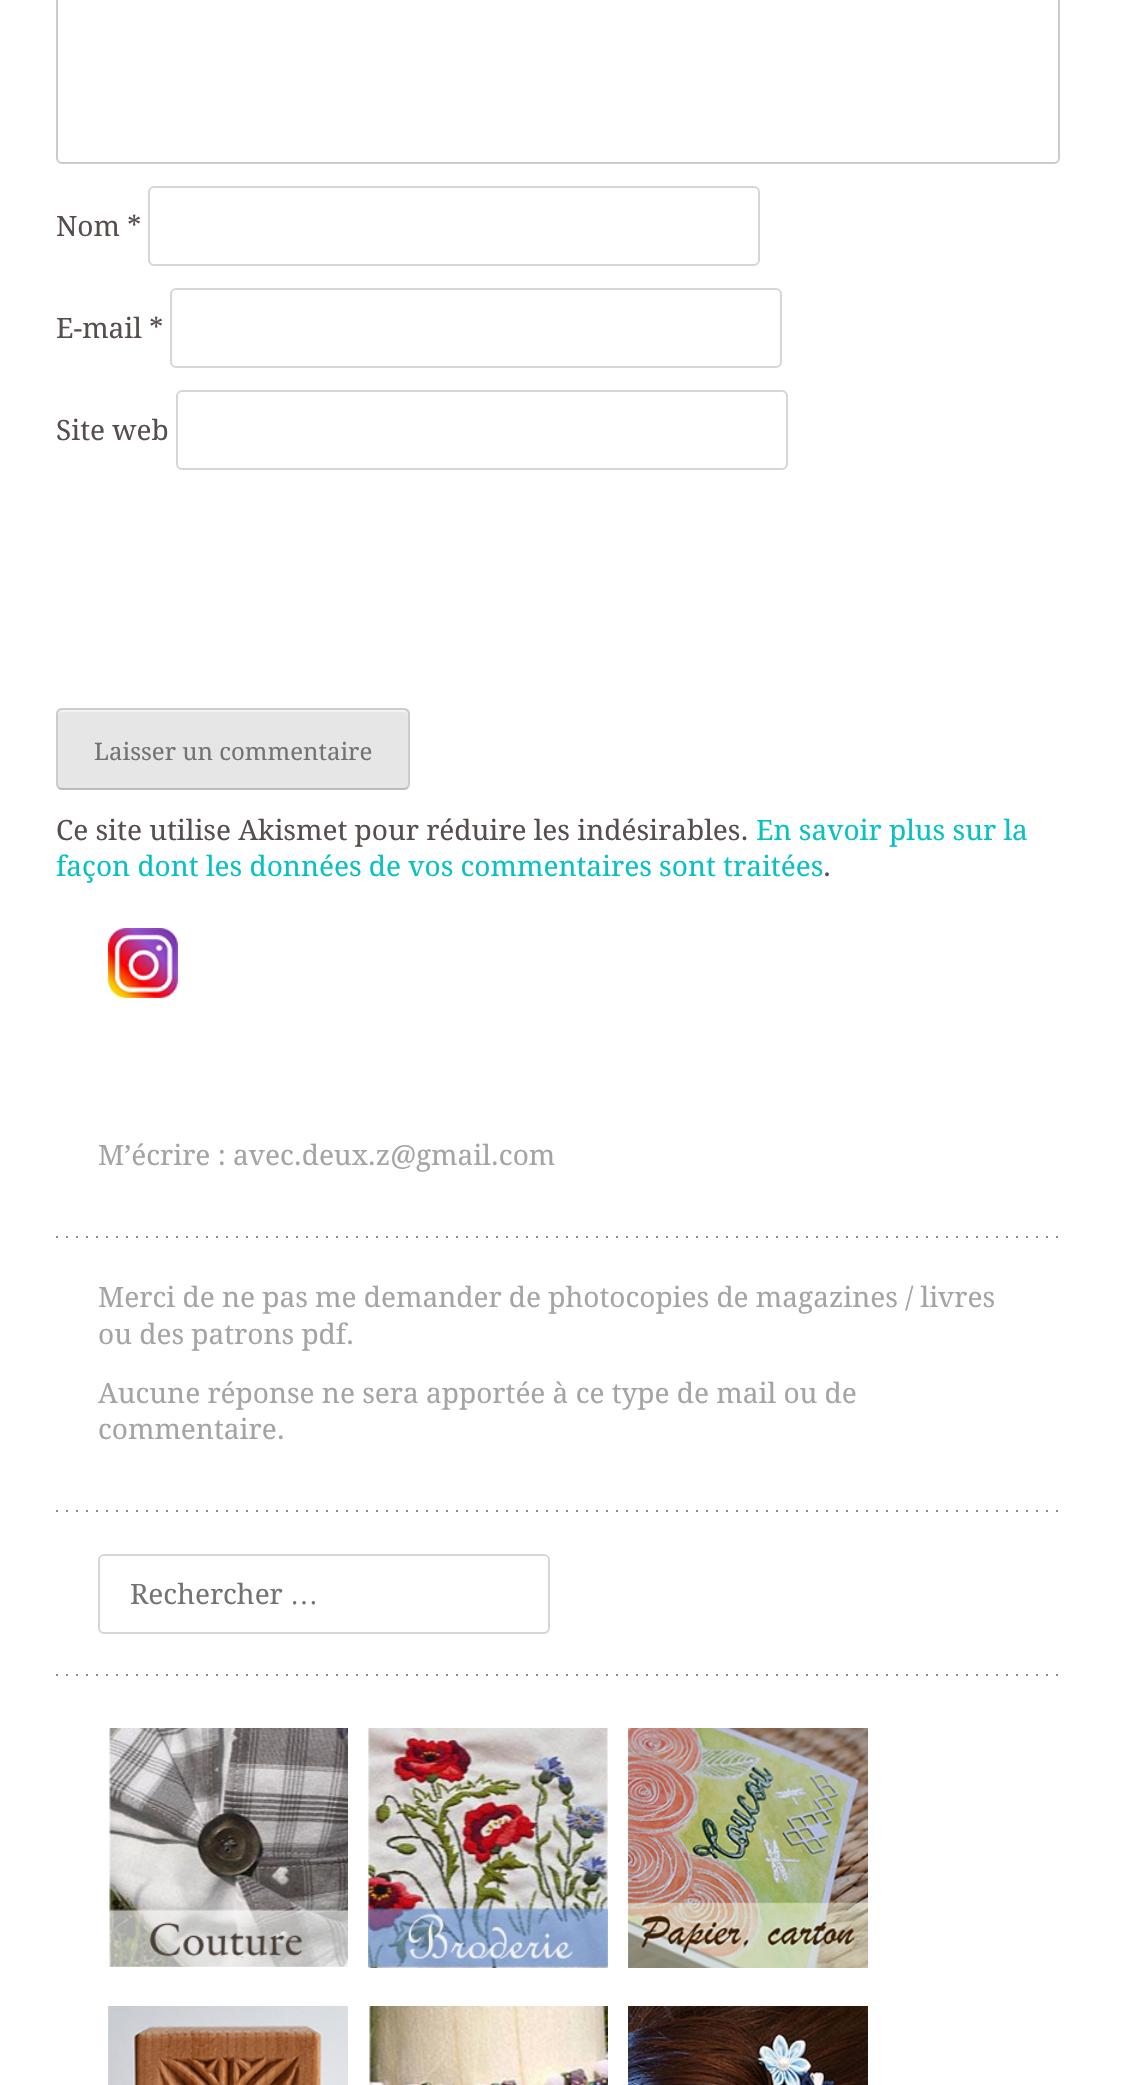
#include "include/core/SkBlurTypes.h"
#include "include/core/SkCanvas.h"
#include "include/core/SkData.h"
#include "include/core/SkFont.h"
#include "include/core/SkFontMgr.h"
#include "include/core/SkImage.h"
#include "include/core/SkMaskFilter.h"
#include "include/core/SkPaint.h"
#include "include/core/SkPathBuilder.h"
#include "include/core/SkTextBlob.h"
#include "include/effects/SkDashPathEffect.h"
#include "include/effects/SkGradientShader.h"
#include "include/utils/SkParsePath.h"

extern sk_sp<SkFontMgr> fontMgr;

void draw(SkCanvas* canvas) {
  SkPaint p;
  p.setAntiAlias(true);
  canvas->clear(SK_ColorWHITE);
  p.setStyle(SkPaint::kStroke_Style);
  p.setStrokeWidth(2);
  p.setColor(SkColorSetRGB(204, 204, 204));
  canvas->drawRoundRect(SkRect::MakeLTRB(57, -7, 1059, 163), 5, 5, p);
  p.setColor(SkColorSetRGB(214, 214, 214));
  canvas->drawRoundRect(SkRect::MakeLTRB(149, 187, 759, 265), 5, 5, p);
  canvas->drawRoundRect(SkRect::MakeLTRB(171, 289, 781, 367), 5, 5, p);
  canvas->drawRoundRect(SkRect::MakeLTRB(177, 391, 787, 469), 5, 5, p);
  p.setStyle(SkPaint::kFill_Style);
  p.setColor(SkColorSetRGB(230, 230, 230));
  canvas->drawRoundRect(SkRect::MakeLTRB(56, 708, 410, 790), 6, 6, p);
  p.setColor(SkColorSetRGB(243, 243, 243));
  canvas->drawPath(SkPathBuilder().moveTo(62, 712).lineTo(404, 712).cubicTo(406, 712, 408, 714, 408, 716).cubicTo(408, 713, 408, 710, 404, 710).lineTo(61, 710).cubicTo(58, 711, 58, 713, 58, 716).cubicTo(58, 714, 60, 712, 62, 712).close().detach(), p);
  p.setStyle(SkPaint::kStroke_Style);
  p.setColor(SkColorSetRGB(187, 187, 187));
  canvas->drawPath(SkPathBuilder().moveTo(407.5f, 787.5f).cubicTo(406.5f, 788.5f, 405.5f, 789, 404, 789).lineTo(62, 789).cubicTo(60.5f, 789, 59.5f, 788.5f, 58.5f, 787.5f).detach(), p);
  p.setColor(SkColorSetRGB(204, 204, 204));
  canvas->drawPath(SkPathBuilder().moveTo(58.5f, 787.5f).cubicTo(57.5f, 786.5f, 57, 785.5f, 57, 784).lineTo(57, 714).cubicTo(57, 712.5f, 57.5f, 711.5f, 58.5f, 710.5f).cubicTo(59.5f, 709.5f, 60.5f, 709, 62, 709).lineTo(404, 709).cubicTo(405.5f, 709, 406.5f, 709.5f, 407.5f, 710.5f).cubicTo(408.5f, 711.5f, 409, 712.5f, 409, 714).lineTo(409, 784).cubicTo(409, 785.5f, 408.5f, 786.5f, 407.5f, 787.5f).detach(), p);
  canvas->drawImageRect(SkImages::DeferredFromEncodedData(SkData::MakeFromFileName("images/1.png")), SkRect::MakeLTRB(56, 1236, 1058, 1238), SkSamplingOptions());
  canvas->drawImageRect(SkImages::DeferredFromEncodedData(SkData::MakeFromFileName("images/2.png")), SkRect::MakeLTRB(108, 928, 178, 998), SkSamplingOptions());
  canvas->drawImageRect(SkImages::DeferredFromEncodedData(SkData::MakeFromFileName("images/1.png")), SkRect::MakeLTRB(56, 1510, 1058, 1512), SkSamplingOptions());
  canvas->drawImageRect(SkImages::DeferredFromEncodedData(SkData::MakeFromFileName("images/1.png")), SkRect::MakeLTRB(56, 1674, 1058, 1676), SkSamplingOptions());
  p.setColor(SkColorSetRGB(214, 214, 214));
  canvas->drawRoundRect(SkRect::MakeLTRB(99, 1555, 549, 1633), 5, 5, p);
  canvas->drawImageRect(SkImages::DeferredFromEncodedData(SkData::MakeFromFileName("images/3.png")), SkRect::MakeLTRB(109, 1728, 348, 1967), SkSamplingOptions());
  canvas->drawImageRect(SkImages::DeferredFromEncodedData(SkData::MakeFromFileName("images/4.png")), SkRect::MakeLTRB(368, 1728, 608, 1968), SkSamplingOptions());
  canvas->drawImageRect(SkImages::DeferredFromEncodedData(SkData::MakeFromFileName("images/5.png")), SkRect::MakeLTRB(628, 1728, 868, 1968), SkSamplingOptions());
  canvas->drawImageRect(SkImages::DeferredFromEncodedData(SkData::MakeFromFileName("images/6.png")), SkRect::MakeLTRB(108, 2006, 348, 2085), SkSamplingOptions());
  canvas->drawImageRect(SkImages::DeferredFromEncodedData(SkData::MakeFromFileName("images/7.png")), SkRect::MakeLTRB(369, 2006, 608, 2085), SkSamplingOptions());
  canvas->drawImageRect(SkImages::DeferredFromEncodedData(SkData::MakeFromFileName("images/8.png")), SkRect::MakeLTRB(628, 2006, 868, 2085), SkSamplingOptions());
  SkFont font1(fontMgr->matchFamilyStyle("Droid Serif", SkFontStyle::Normal()), 28);
  font1.setSubpixel(true);
  p.setStyle(SkPaint::kFill_Style);
  p.setColor(SkColorSetRGB(87, 77, 77));
  canvas->drawString("Nom *", 56, 236, font1, p);
  canvas->drawString("E-mail *", 56, 338, font1, p);
  canvas->drawString("Site web", 56, 440, font1, p);
  SkFont font2(fontMgr->matchFamilyStyle("Droid Serif", SkFontStyle::Normal()), 24);
  font2.setSubpixel(true);
  p.setColor(SkColorSetRGB(115, 115, 115));
  canvas->drawString("Laisser un commentaire", 94, 760, font2, p);
  p.setColor(SkColorSetRGB(87, 77, 77));
  canvas->drawString("Ce site utilise Akismet pour réduire les indésirables.", 56, 840, font1, p);
  p.setColor(SkColorSetRGB(8, 193, 195));
  canvas->drawString("En savoir plus sur la", 756, 840, font1, p);
  canvas->drawString("façon dont les données de vos commentaires sont traitées", 56, 876, font1, p);
  p.setColor(SkColorSetRGB(87, 77, 77));
  canvas->drawString(".", 823, 876, font1, p);
  p.setColor(SkColorSetRGB(165, 163, 163));
  canvas->drawString("M’écrire : avec.deux.z@gmail.com", 98, 1165, font1, p);
  canvas->drawString("Merci de ne pas me demander de photocopies de magazines / livres", 98, 1307, font1, p);
  canvas->drawString("ou des patrons pdf.", 98, 1344, font1, p);
  canvas->drawString("Aucune réponse ne sera apportée à ce type de mail ou de", 98, 1403, font1, p);
  canvas->drawString("commentaire.", 98, 1439, font1, p);
  p.setColor(SkColorSetRGB(115, 115, 115));
  canvas->drawString("Rechercher", 130, 1604, font1, p);
  SkFont font3(fontMgr->matchFamilyStyle("Liberation Serif", SkFontStyle::Normal()), 28);
  font3.setSubpixel(true);
  canvas->drawString("…", 290, 1604, font3, p);
}
